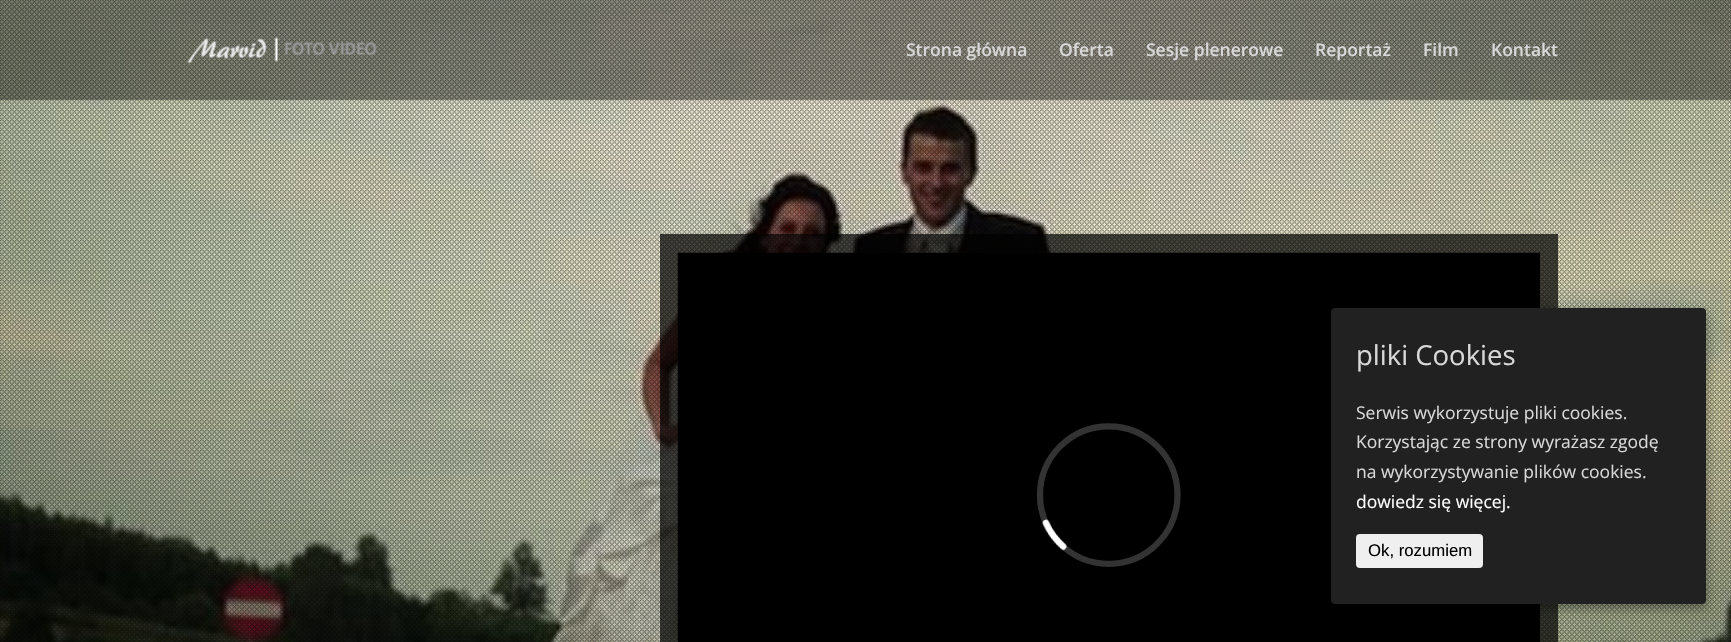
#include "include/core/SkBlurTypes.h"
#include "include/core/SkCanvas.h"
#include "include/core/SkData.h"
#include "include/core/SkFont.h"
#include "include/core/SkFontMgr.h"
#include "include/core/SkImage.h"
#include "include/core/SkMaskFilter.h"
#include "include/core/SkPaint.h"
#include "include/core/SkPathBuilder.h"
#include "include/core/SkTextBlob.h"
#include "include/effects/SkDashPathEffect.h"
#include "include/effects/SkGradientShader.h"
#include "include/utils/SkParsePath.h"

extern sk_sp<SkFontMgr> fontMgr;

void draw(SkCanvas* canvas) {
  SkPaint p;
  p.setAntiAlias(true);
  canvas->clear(SK_ColorWHITE);
  canvas->drawImageRect(SkImages::DeferredFromEncodedData(SkData::MakeFromFileName("images/1.png")), SkRect::MakeLTRB(0, 0, 1731, 642), SkSamplingOptions());
  canvas->drawImageRect(SkImages::DeferredFromEncodedData(SkData::MakeFromFileName("images/2.png")), SkRect::MakeLTRB(0, 0, 1731, 642), SkSamplingOptions());
  p.setColor(SkColorSetARGB(179, 0, 0, 0));
  canvas->drawRect(SkRect::MakeLTRB(660, 234, 1558, 642), p);
  canvas->drawImageRect(SkImages::DeferredFromEncodedData(SkData::MakeFromFileName("images/3.png")), SkRect::MakeLTRB(677, 252, 1540, 642), SkSamplingOptions());
  p.setColor(SkColorSetARGB(99, 0, 0, 0));
  canvas->drawRect(SkRect::MakeLTRB(0, 0, 1731, 100), p);
  canvas->drawImageRect(SkImages::DeferredFromEncodedData(SkData::MakeFromFileName("images/4.png")), SkRect::MakeLTRB(187, 37, 377, 64), SkSamplingOptions());
  p.setColor(SkColorSetARGB(102, 0, 0, 0));
  p.setMaskFilter(SkMaskFilter::MakeBlur(kNormal_SkBlurStyle, 5.5f));
  canvas->drawRoundRect(SkRect::MakeLTRB(1331, 311, 1706, 608), 4, 4, p);
  p.setMaskFilter(nullptr);
  p.setColor(SkColorSetRGB(33, 33, 33));
  canvas->drawRoundRect(SkRect::MakeLTRB(1331, 308, 1706, 604), 4, 4, p);
  p.setColor(SkColorSetRGB(239, 239, 239));
  canvas->drawRoundRect(SkRect::MakeLTRB(1356, 534, 1483, 568), 4, 4, p);
  SkFont font1(fontMgr->matchFamilyStyle("Open Sans", SkFontStyle(600, SkFontStyle::kNormal_Width, SkFontStyle::kUpright_Slant)), 17.5f);
  font1.setSubpixel(true);
  p.setColor(SkColorSetRGB(216, 216, 216));
  canvas->drawString("Strona główna", 906, 56, font1, p);
  canvas->drawString("Oferta", 1059, 56, font1, p);
  canvas->drawString("Sesje plenerowe", 1146, 56, font1, p);
  canvas->drawString("Reportaż", 1315, 56, font1, p);
  canvas->drawString("Film", 1423, 56, font1, p);
  canvas->drawString("Kontakt", 1491, 56, font1, p);
  SkFont font2(fontMgr->matchFamilyStyle("Open Sans", SkFontStyle::Normal()), 27.5f);
  font2.setSubpixel(true);
  canvas->drawString("pliki Cookies", 1356, 365, font2, p);
  SkFont font3(fontMgr->matchFamilyStyle("Open Sans", SkFontStyle::Normal()), 17.5f);
  font3.setSubpixel(true);
  canvas->drawString("Serwis wykorzystuje pliki cookies.", 1356, 419, font3, p);
  canvas->drawString("Korzystając ze strony wyrażasz zgodę", 1356, 448, font3, p);
  canvas->drawString("na wykorzystywanie plików cookies.", 1356, 478, font3, p);
  p.setColor(SK_ColorWHITE);
  canvas->drawString("dowiedz się więcej.", 1356, 508, font3, p);
  SkFont font4(fontMgr->matchFamilyStyle("Liberation Sans", SkFontStyle::Normal()), 16.75f);
  font4.setSubpixel(true);
  p.setColor(SK_ColorBLACK);
  canvas->drawString("Ok, rozumiem", 1368, 556, font4, p);
}
